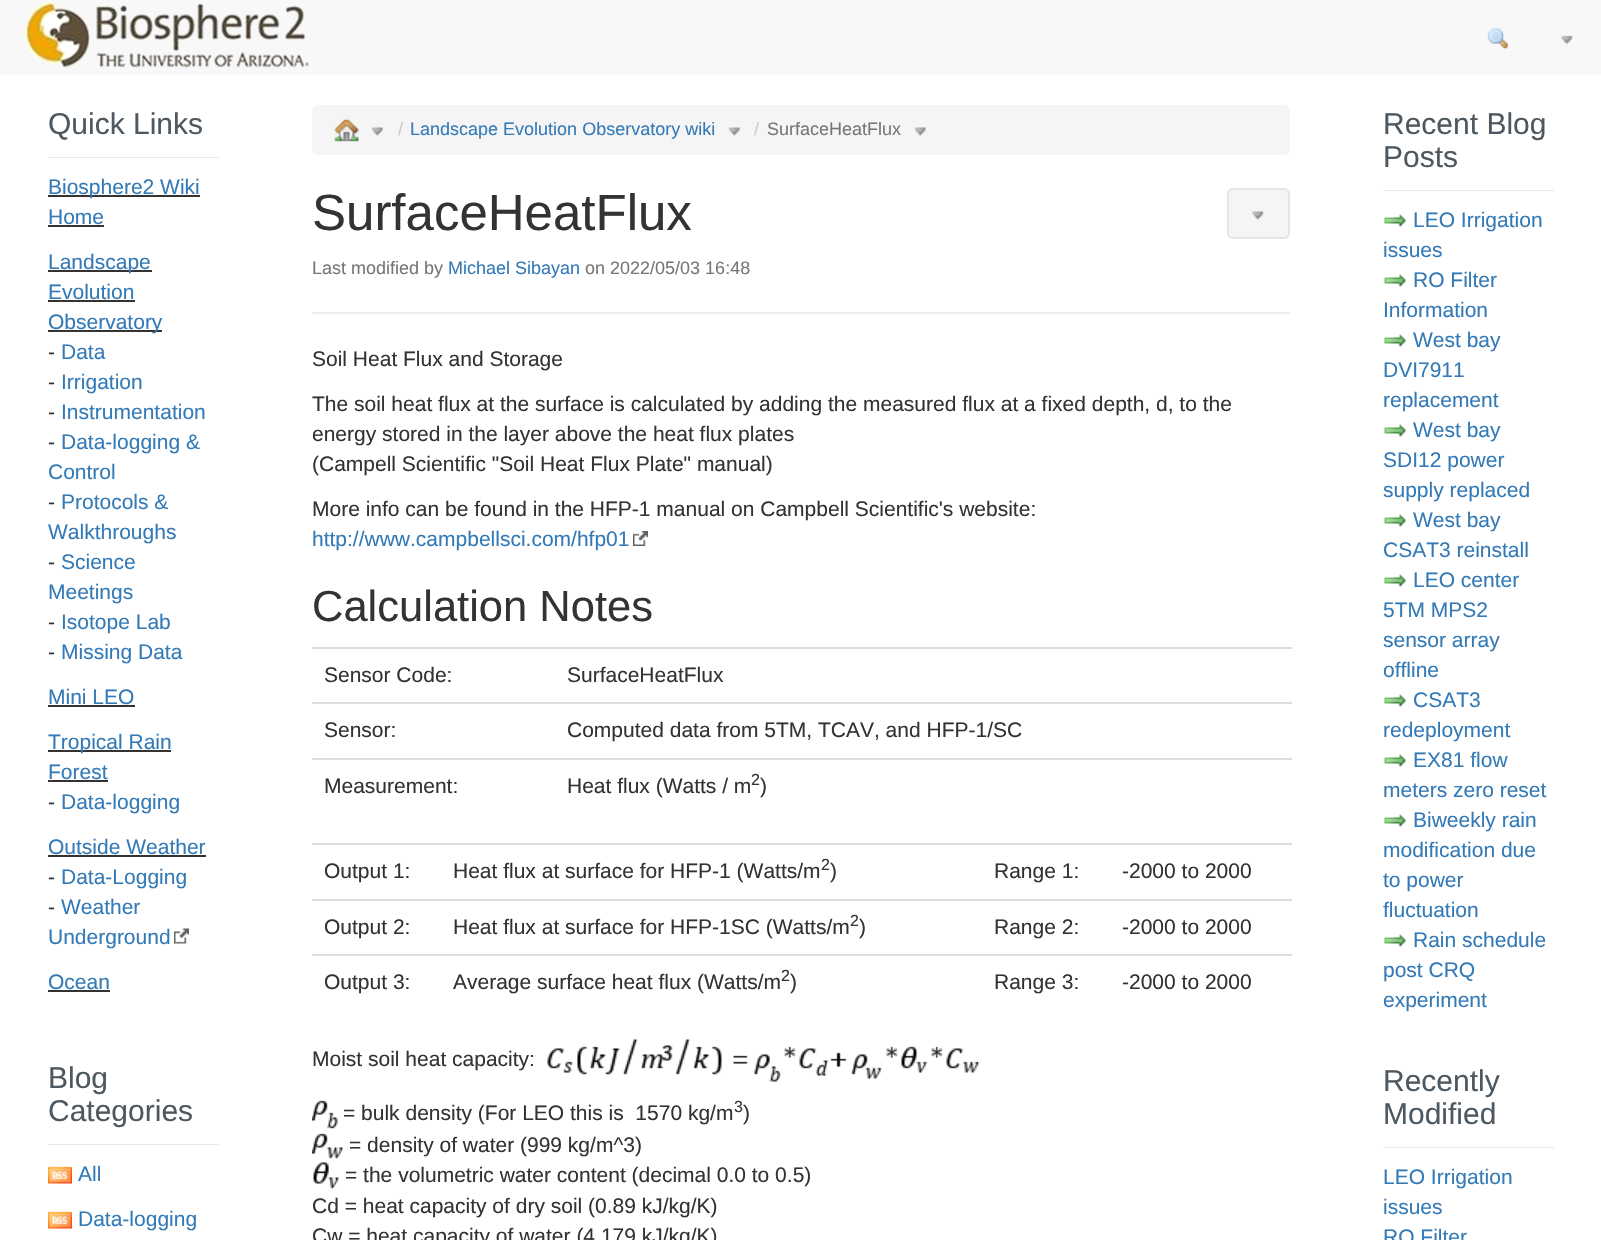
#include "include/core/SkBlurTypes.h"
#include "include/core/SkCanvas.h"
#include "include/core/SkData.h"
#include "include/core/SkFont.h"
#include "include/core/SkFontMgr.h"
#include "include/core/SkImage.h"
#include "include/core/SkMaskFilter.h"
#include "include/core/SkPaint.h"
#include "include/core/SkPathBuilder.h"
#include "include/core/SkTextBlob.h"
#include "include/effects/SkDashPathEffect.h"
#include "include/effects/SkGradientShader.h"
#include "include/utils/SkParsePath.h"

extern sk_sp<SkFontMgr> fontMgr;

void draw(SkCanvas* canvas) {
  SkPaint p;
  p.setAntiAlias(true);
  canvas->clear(SK_ColorWHITE);
  p.setColor(SkColorSetRGB(248, 248, 248));
  canvas->drawRect(SkRect::MakeLTRB(0, 0, 1601, 75), p);
  canvas->drawImageRect(SkImages::DeferredFromEncodedData(SkData::MakeFromFileName("images/1.png")), SkRect::MakeLTRB(23, 2, 309, 68), SkSamplingOptions());
  canvas->drawImageRect(SkImages::DeferredFromEncodedData(SkData::MakeFromFileName("images/2.png")), SkRect::MakeLTRB(1487, 28, 1508, 50), SkSamplingOptions());
  canvas->drawImageRect(SkImages::DeferredFromEncodedData(SkData::MakeFromFileName("images/3.png")), SkRect::MakeLTRB(1561, 35, 1573, 44), SkSamplingOptions());
  p.setColor(SkColorSetRGB(232, 232, 232));
  canvas->drawRect(SkRect::MakeLTRB(48, 157, 219, 158), p);
  p.setColor(SkColorSetRGB(51, 51, 51));
  canvas->drawRect(SkRect::MakeLTRB(48, 195, 200, 197), p);
  canvas->drawRect(SkRect::MakeLTRB(48, 225, 104, 227), p);
  canvas->drawRect(SkRect::MakeLTRB(48, 270, 152, 272), p);
  canvas->drawRect(SkRect::MakeLTRB(48, 300, 135, 302), p);
  canvas->drawRect(SkRect::MakeLTRB(48, 330, 162, 332), p);
  canvas->drawRect(SkRect::MakeLTRB(48, 705, 135, 707), p);
  canvas->drawRect(SkRect::MakeLTRB(48, 750, 171, 752), p);
  canvas->drawRect(SkRect::MakeLTRB(48, 780, 108, 782), p);
  canvas->drawRect(SkRect::MakeLTRB(48, 855, 206, 857), p);
  canvas->drawImageRect(SkImages::DeferredFromEncodedData(SkData::MakeFromFileName("images/4.png")), SkRect::MakeLTRB(174, 928, 189, 944), SkSamplingOptions());
  canvas->drawRect(SkRect::MakeLTRB(48, 990, 110, 992), p);
  p.setColor(SkColorSetRGB(232, 232, 232));
  canvas->drawRect(SkRect::MakeLTRB(48, 1144, 219, 1145), p);
  canvas->drawImageRect(SkImages::DeferredFromEncodedData(SkData::MakeFromFileName("images/5.png")), SkRect::MakeLTRB(48, 1166, 72, 1184), SkSamplingOptions());
  canvas->drawImageRect(SkImages::DeferredFromEncodedData(SkData::MakeFromFileName("images/5.png")), SkRect::MakeLTRB(48, 1211, 72, 1229), SkSamplingOptions());
  p.setColor(SkColorSetRGB(245, 245, 245));
  canvas->drawRoundRect(SkRect::MakeLTRB(312, 105, 1290, 155), 6, 6, p);
  canvas->drawImageRect(SkImages::DeferredFromEncodedData(SkData::MakeFromFileName("images/6.png")), SkRect::MakeLTRB(334, 118, 359, 142), SkSamplingOptions());
  canvas->drawImageRect(SkImages::DeferredFromEncodedData(SkData::MakeFromFileName("images/7.png")), SkRect::MakeLTRB(371, 127, 383, 136), SkSamplingOptions());
  canvas->drawImageRect(SkImages::DeferredFromEncodedData(SkData::MakeFromFileName("images/7.png")), SkRect::MakeLTRB(728, 127, 740, 136), SkSamplingOptions());
  canvas->drawImageRect(SkImages::DeferredFromEncodedData(SkData::MakeFromFileName("images/8.png")), SkRect::MakeLTRB(914, 127, 926, 136), SkSamplingOptions());
  canvas->drawRoundRect(SkRect::MakeLTRB(1228, 189, 1289, 238), 5, 5, p);
  p.setStyle(SkPaint::kStroke_Style);
  p.setStrokeWidth(2);
  p.setColor(SkColorSetRGB(229, 229, 229));
  canvas->drawRoundRect(SkRect::MakeLTRB(1228, 189, 1289, 238), 5, 5, p);
  canvas->drawImageRect(SkImages::DeferredFromEncodedData(SkData::MakeFromFileName("images/9.png")), SkRect::MakeLTRB(1252, 211, 1264, 220), SkSamplingOptions());
  p.setStyle(SkPaint::kFill_Style);
  p.setColor(SkColorSetRGB(238, 238, 238));
  canvas->drawRect(SkRect::MakeLTRB(312, 312, 1290, 314), p);
  canvas->drawImageRect(SkImages::DeferredFromEncodedData(SkData::MakeFromFileName("images/10.png")), SkRect::MakeLTRB(633, 531, 648, 546), SkSamplingOptions());
  p.setColor(SkColorSetRGB(221, 221, 221));
  canvas->drawRect(SkRect::MakeLTRB(312, 647, 1292, 649), p);
  canvas->drawRect(SkRect::MakeLTRB(312, 702, 1292, 704), p);
  canvas->drawRect(SkRect::MakeLTRB(312, 758, 1292, 760), p);
  canvas->drawRect(SkRect::MakeLTRB(312, 843, 1292, 845), p);
  canvas->drawRect(SkRect::MakeLTRB(312, 899, 1292, 901), p);
  canvas->drawRect(SkRect::MakeLTRB(312, 954, 1292, 956), p);
  canvas->drawImageRect(SkImages::DeferredFromEncodedData(SkData::MakeFromFileName("images/11.png")), SkRect::MakeLTRB(547, 1039, 980, 1082), SkSamplingOptions());
  canvas->drawImageRect(SkImages::DeferredFromEncodedData(SkData::MakeFromFileName("images/12.png")), SkRect::MakeLTRB(312, 1100, 338, 1129), SkSamplingOptions());
  canvas->drawImageRect(SkImages::DeferredFromEncodedData(SkData::MakeFromFileName("images/13.png")), SkRect::MakeLTRB(312, 1133, 344, 1159), SkSamplingOptions());
  canvas->drawImageRect(SkImages::DeferredFromEncodedData(SkData::MakeFromFileName("images/14.png")), SkRect::MakeLTRB(313, 1162, 339, 1189), SkSamplingOptions());
  p.setColor(SkColorSetRGB(232, 232, 232));
  canvas->drawRect(SkRect::MakeLTRB(1383, 190, 1554, 191), p);
  canvas->drawImageRect(SkImages::DeferredFromEncodedData(SkData::MakeFromFileName("images/15.png")), SkRect::MakeLTRB(1384, 214, 1406, 227), SkSamplingOptions());
  canvas->drawImageRect(SkImages::DeferredFromEncodedData(SkData::MakeFromFileName("images/15.png")), SkRect::MakeLTRB(1384, 274, 1406, 287), SkSamplingOptions());
  canvas->drawImageRect(SkImages::DeferredFromEncodedData(SkData::MakeFromFileName("images/15.png")), SkRect::MakeLTRB(1384, 334, 1406, 347), SkSamplingOptions());
  canvas->drawImageRect(SkImages::DeferredFromEncodedData(SkData::MakeFromFileName("images/15.png")), SkRect::MakeLTRB(1384, 424, 1406, 437), SkSamplingOptions());
  canvas->drawImageRect(SkImages::DeferredFromEncodedData(SkData::MakeFromFileName("images/15.png")), SkRect::MakeLTRB(1384, 514, 1406, 527), SkSamplingOptions());
  canvas->drawImageRect(SkImages::DeferredFromEncodedData(SkData::MakeFromFileName("images/15.png")), SkRect::MakeLTRB(1384, 574, 1406, 587), SkSamplingOptions());
  canvas->drawImageRect(SkImages::DeferredFromEncodedData(SkData::MakeFromFileName("images/15.png")), SkRect::MakeLTRB(1384, 694, 1406, 707), SkSamplingOptions());
  canvas->drawImageRect(SkImages::DeferredFromEncodedData(SkData::MakeFromFileName("images/15.png")), SkRect::MakeLTRB(1384, 754, 1406, 767), SkSamplingOptions());
  canvas->drawImageRect(SkImages::DeferredFromEncodedData(SkData::MakeFromFileName("images/15.png")), SkRect::MakeLTRB(1384, 814, 1406, 827), SkSamplingOptions());
  canvas->drawImageRect(SkImages::DeferredFromEncodedData(SkData::MakeFromFileName("images/15.png")), SkRect::MakeLTRB(1384, 934, 1406, 947), SkSamplingOptions());
  canvas->drawRect(SkRect::MakeLTRB(1383, 1147, 1554, 1148), p);
  SkFont font1(fontMgr->matchFamilyStyle("Liberation Sans", SkFontStyle::Normal()), 30);
  font1.setSubpixel(true);
  p.setColor(SkColorSetRGB(77, 88, 96));
  canvas->drawString("Quick Links", 48, 134, font1, p);
  SkFont font2(fontMgr->matchFamilyStyle("Liberation Sans", SkFontStyle::Normal()), 21);
  font2.setSubpixel(true);
  p.setColor(SkColorSetRGB(51, 122, 183));
  canvas->drawString("Biosphere2 Wiki", 48, 194, font2, p);
  canvas->drawString("Home", 48, 224, font2, p);
  canvas->drawString("Landscape", 48, 269, font2, p);
  canvas->drawString("Evolution", 48, 299, font2, p);
  canvas->drawString("Observatory", 48, 329, font2, p);
  p.setColor(SkColorSetRGB(51, 51, 51));
  canvas->drawString("-", 48, 359, font2, p);
  p.setColor(SkColorSetRGB(51, 122, 183));
  canvas->drawString("Data", 61, 359, font2, p);
  p.setColor(SkColorSetRGB(51, 51, 51));
  canvas->drawString("-", 48, 389, font2, p);
  p.setColor(SkColorSetRGB(51, 122, 183));
  canvas->drawString("Irrigation", 61, 389, font2, p);
  p.setColor(SkColorSetRGB(51, 51, 51));
  canvas->drawString("-", 48, 419, font2, p);
  p.setColor(SkColorSetRGB(51, 122, 183));
  canvas->drawString("Instrumentation", 61, 419, font2, p);
  p.setColor(SkColorSetRGB(51, 51, 51));
  canvas->drawString("-", 48, 449, font2, p);
  p.setColor(SkColorSetRGB(51, 122, 183));
  canvas->drawString("Data-logging &", 61, 449, font2, p);
  canvas->drawString("Control", 48, 479, font2, p);
  p.setColor(SkColorSetRGB(51, 51, 51));
  canvas->drawString("-", 48, 509, font2, p);
  p.setColor(SkColorSetRGB(51, 122, 183));
  canvas->drawString("Protocols &", 61, 509, font2, p);
  canvas->drawString("Walkthroughs", 48, 539, font2, p);
  p.setColor(SkColorSetRGB(51, 51, 51));
  canvas->drawString("-", 48, 569, font2, p);
  p.setColor(SkColorSetRGB(51, 122, 183));
  canvas->drawString("Science", 61, 569, font2, p);
  canvas->drawString("Meetings", 48, 599, font2, p);
  p.setColor(SkColorSetRGB(51, 51, 51));
  canvas->drawString("-", 48, 629, font2, p);
  p.setColor(SkColorSetRGB(51, 122, 183));
  canvas->drawString("Isotope Lab", 61, 629, font2, p);
  p.setColor(SkColorSetRGB(51, 51, 51));
  canvas->drawString("-", 48, 659, font2, p);
  p.setColor(SkColorSetRGB(51, 122, 183));
  canvas->drawString("Missing Data", 61, 659, font2, p);
  canvas->drawString("Mini LEO", 48, 704, font2, p);
  canvas->drawString("Tropical Rain", 48, 749, font2, p);
  canvas->drawString("Forest", 48, 779, font2, p);
  p.setColor(SkColorSetRGB(51, 51, 51));
  canvas->drawString("-", 48, 809, font2, p);
  p.setColor(SkColorSetRGB(51, 122, 183));
  canvas->drawString("Data-logging", 61, 809, font2, p);
  canvas->drawString("Outside Weather", 48, 854, font2, p);
  p.setColor(SkColorSetRGB(51, 51, 51));
  canvas->drawString("-", 48, 884, font2, p);
  p.setColor(SkColorSetRGB(51, 122, 183));
  canvas->drawString("Data-Logging", 61, 884, font2, p);
  p.setColor(SkColorSetRGB(51, 51, 51));
  canvas->drawString("-", 48, 914, font2, p);
  p.setColor(SkColorSetRGB(51, 122, 183));
  canvas->drawString("Weather", 61, 914, font2, p);
  canvas->drawString("Underground", 48, 944, font2, p);
  canvas->drawString("Ocean", 48, 989, font2, p);
  p.setColor(SkColorSetRGB(77, 88, 96));
  canvas->drawString("Blog", 48, 1088, font1, p);
  canvas->drawString("Categories", 48, 1121, font1, p);
  p.setColor(SkColorSetRGB(51, 122, 183));
  canvas->drawString("All", 78, 1181, font2, p);
  canvas->drawString("Data-logging", 78, 1226, font2, p);
  SkFont font3(fontMgr->matchFamilyStyle("Liberation Sans", SkFontStyle::Normal()), 18);
  font3.setSubpixel(true);
  p.setColor(SkColorSetRGB(204, 204, 204));
  canvas->drawString("/", 398, 135, font3, p);
  p.setColor(SkColorSetRGB(51, 122, 183));
  canvas->drawString("Landscape Evolution Observatory wiki", 410, 135, font3, p);
  p.setColor(SkColorSetRGB(204, 204, 204));
  canvas->drawString("/", 754, 135, font3, p);
  p.setColor(SkColorSetRGB(119, 119, 119));
  canvas->drawString("SurfaceHeatFlux", 767, 135, font3, p);
  SkFont font4(fontMgr->matchFamilyStyle("Liberation Sans", SkFontStyle::Normal()), 51);
  font4.setSubpixel(true);
  p.setColor(SkColorSetRGB(51, 51, 51));
  canvas->drawString("SurfaceHeatFlux", 312, 230, font4, p);
  p.setColor(SkColorSetRGB(119, 119, 119));
  canvas->drawString("Last modified by", 312, 274, font3, p);
  p.setColor(SkColorSetRGB(51, 122, 183));
  canvas->drawString("Michael Sibayan", 448, 274, font3, p);
  p.setColor(SkColorSetRGB(119, 119, 119));
  canvas->drawString("on 2022/05/03 16:48", 585, 274, font3, p);
  p.setColor(SkColorSetRGB(51, 51, 51));
  canvas->drawString("Soil Heat Flux and Storage", 312, 366, font2, p);
  canvas->drawString("The soil heat flux at the surface is calculated by adding the measured flux at a fixed depth, d, to the", 312, 411, font2, p);
  canvas->drawString("energy stored in the layer above the heat flux plates", 312, 441, font2, p);
  canvas->drawString("(Campell Scientific \"Soil Heat Flux Plate\" manual)", 312, 471, font2, p);
  canvas->drawString("More info can be found in the HFP-1 manual on Campbell Scientific's website:", 312, 516, font2, p);
  p.setColor(SkColorSetRGB(51, 122, 183));
  canvas->drawString("http://www.campbellsci.com/hfp01", 312, 546, font2, p);
  SkFont font5(fontMgr->matchFamilyStyle("Liberation Sans", SkFontStyle::Normal()), 43.5f);
  font5.setSubpixel(true);
  p.setColor(SkColorSetRGB(51, 51, 51));
  canvas->drawString("Calculation Notes", 312, 621, font5, p);
  canvas->drawString("Sensor Code:", 324, 682, font2, p);
  canvas->drawString("SurfaceHeatFlux", 567, 682, font2, p);
  canvas->drawString("Sensor:", 324, 737, font2, p);
  canvas->drawString("Computed data from 5TM, TCAV, and HFP-1/SC", 567, 737, font2, p);
  canvas->drawString("Measurement:", 324, 793, font2, p);
  canvas->drawString("Heat flux (Watts / m", 567, 793, font2, p);
  SkFont font6(fontMgr->matchFamilyStyle("Liberation Sans", SkFontStyle::Normal()), 16);
  font6.setSubpixel(true);
  canvas->drawString("2", 751, 785, font6, p);
  canvas->drawString(")", 760, 793, font2, p);
  canvas->drawString("Output 1:", 324, 878, font2, p);
  canvas->drawString("Heat flux at surface for HFP-1 (Watts/m", 453, 878, font2, p);
  canvas->drawString("2", 821, 870, font6, p);
  canvas->drawString(")", 830, 878, font2, p);
  canvas->drawString("Range 1:", 994, 878, font2, p);
  canvas->drawString("-2000 to 2000", 1122, 878, font2, p);
  canvas->drawString("Output 2:", 324, 934, font2, p);
  canvas->drawString("Heat flux at surface for HFP-1SC (Watts/m", 453, 934, font2, p);
  canvas->drawString("2", 850, 926, font6, p);
  canvas->drawString(")", 859, 934, font2, p);
  canvas->drawString("Range 2:", 994, 934, font2, p);
  canvas->drawString("-2000 to 2000", 1122, 934, font2, p);
  canvas->drawString("Output 3:", 324, 989, font2, p);
  canvas->drawString("Average surface heat flux (Watts/m", 453, 989, font2, p);
  canvas->drawString("2", 781, 981, font6, p);
  canvas->drawString(")", 790, 989, font2, p);
  canvas->drawString("Range 3:", 994, 989, font2, p);
  canvas->drawString("-2000 to 2000", 1122, 989, font2, p);
  canvas->drawString("Moist soil heat capacity:", 312, 1066, font2, p);
  canvas->drawString("= bulk density (For LEO this is  1570 kg/m", 343, 1120, font2, p);
  canvas->drawString("3", 734, 1112, font6, p);
  canvas->drawString(")", 743, 1120, font2, p);
  canvas->drawString("= density of water (999 kg/m^3)", 349, 1152, font2, p);
  canvas->drawString("= the volumetric water content (decimal 0.0 to 0.5)", 345, 1182, font2, p);
  canvas->drawString("Cd = heat capacity of dry soil (0.89 kJ/kg/K)", 312, 1213, font2, p);
  canvas->drawString("Cw = heat capacity of water (4.179 kJ/kg/K)", 312, 1243, font2, p);
  p.setColor(SkColorSetRGB(77, 88, 96));
  canvas->drawString("Recent Blog", 1383, 134, font1, p);
  canvas->drawString("Posts", 1383, 167, font1, p);
  p.setColor(SkColorSetRGB(51, 122, 183));
  canvas->drawString("LEO Irrigation", 1413, 227, font2, p);
  canvas->drawString("issues", 1383, 257, font2, p);
  canvas->drawString("RO Filter", 1413, 287, font2, p);
  canvas->drawString("Information", 1383, 317, font2, p);
  canvas->drawString("West bay", 1413, 347, font2, p);
  canvas->drawString("DVI7911", 1383, 377, font2, p);
  canvas->drawString("replacement", 1383, 407, font2, p);
  canvas->drawString("West bay", 1413, 437, font2, p);
  canvas->drawString("SDI12 power", 1383, 467, font2, p);
  canvas->drawString("supply replaced", 1383, 497, font2, p);
  canvas->drawString("West bay", 1413, 527, font2, p);
  canvas->drawString("CSAT3 reinstall", 1383, 557, font2, p);
  canvas->drawString("LEO center", 1413, 587, font2, p);
  canvas->drawString("5TM MPS2", 1383, 617, font2, p);
  canvas->drawString("sensor array", 1383, 647, font2, p);
  canvas->drawString("offline", 1383, 677, font2, p);
  canvas->drawString("CSAT3", 1413, 707, font2, p);
  canvas->drawString("redeployment", 1383, 737, font2, p);
  canvas->drawString("EX81 flow", 1413, 767, font2, p);
  canvas->drawString("meters zero reset", 1383, 797, font2, p);
  canvas->drawString("Biweekly rain", 1413, 827, font2, p);
  canvas->drawString("modification due", 1383, 857, font2, p);
  canvas->drawString("to power", 1383, 887, font2, p);
  canvas->drawString("fluctuation", 1383, 917, font2, p);
  canvas->drawString("Rain schedule", 1413, 947, font2, p);
  canvas->drawString("post CRQ", 1383, 977, font2, p);
  canvas->drawString("experiment", 1383, 1007, font2, p);
  p.setColor(SkColorSetRGB(77, 88, 96));
  canvas->drawString("Recently", 1383, 1091, font1, p);
  canvas->drawString("Modified", 1383, 1124, font1, p);
  p.setColor(SkColorSetRGB(51, 122, 183));
  canvas->drawString("LEO Irrigation", 1383, 1184, font2, p);
  canvas->drawString("issues", 1383, 1214, font2, p);
  canvas->drawString("RO Filter", 1383, 1244, font2, p);
}
